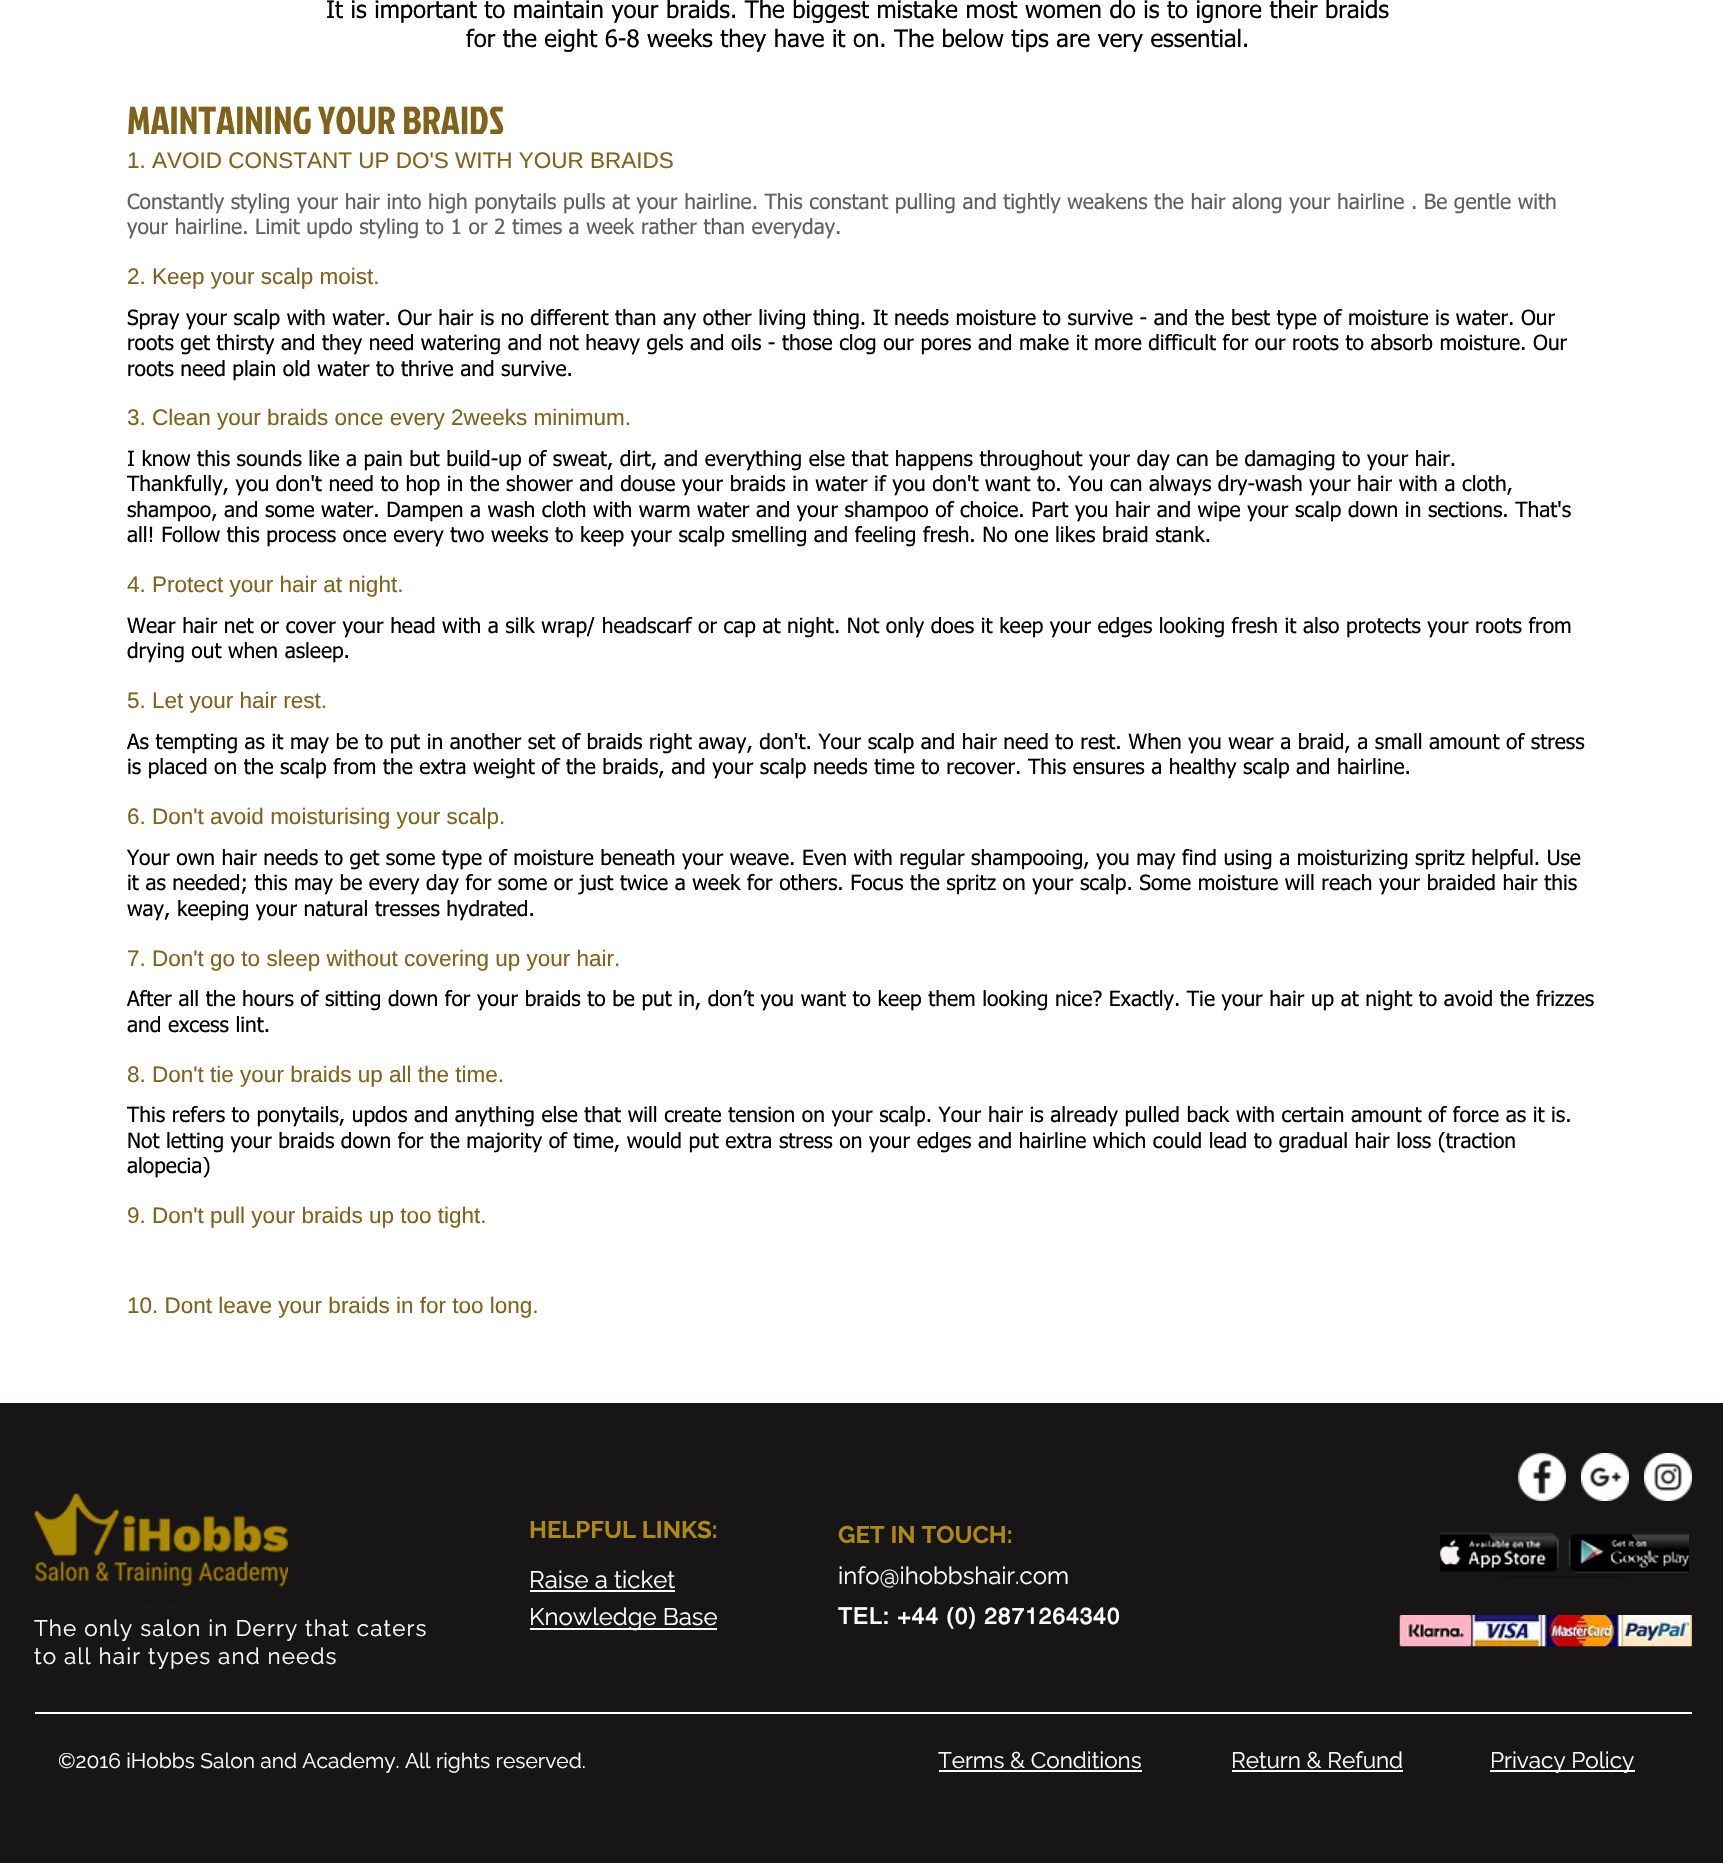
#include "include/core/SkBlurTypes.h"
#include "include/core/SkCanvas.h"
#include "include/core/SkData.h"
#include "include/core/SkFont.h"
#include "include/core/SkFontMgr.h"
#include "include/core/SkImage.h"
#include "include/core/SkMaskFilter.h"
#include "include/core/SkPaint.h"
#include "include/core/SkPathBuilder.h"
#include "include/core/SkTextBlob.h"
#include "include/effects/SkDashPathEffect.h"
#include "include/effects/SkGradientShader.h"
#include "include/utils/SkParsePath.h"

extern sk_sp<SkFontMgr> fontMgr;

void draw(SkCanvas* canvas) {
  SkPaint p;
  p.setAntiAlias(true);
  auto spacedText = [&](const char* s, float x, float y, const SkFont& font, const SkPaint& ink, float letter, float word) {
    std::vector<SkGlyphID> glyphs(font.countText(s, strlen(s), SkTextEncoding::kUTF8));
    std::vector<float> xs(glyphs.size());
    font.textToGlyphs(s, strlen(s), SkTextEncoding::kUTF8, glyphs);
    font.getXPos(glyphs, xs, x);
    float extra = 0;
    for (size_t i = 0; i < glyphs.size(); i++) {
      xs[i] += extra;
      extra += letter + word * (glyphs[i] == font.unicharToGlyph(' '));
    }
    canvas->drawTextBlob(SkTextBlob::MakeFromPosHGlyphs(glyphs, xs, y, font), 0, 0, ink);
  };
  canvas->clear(SK_ColorWHITE);
  p.setColor(SkColorSetRGB(23, 21, 21));
  canvas->drawRect(SkRect::MakeLTRB(0, 1403, 1723, 1863), p);
  canvas->drawImageRect(SkImages::DeferredFromEncodedData(SkData::MakeFromFileName("images/1.png")), SkRect::MakeLTRB(1518, 1453, 1566, 1501), SkSamplingOptions());
  canvas->drawImageRect(SkImages::DeferredFromEncodedData(SkData::MakeFromFileName("images/2.png")), SkRect::MakeLTRB(1581, 1453, 1629, 1501), SkSamplingOptions());
  canvas->drawImageRect(SkImages::DeferredFromEncodedData(SkData::MakeFromFileName("images/3.png")), SkRect::MakeLTRB(1644, 1453, 1692, 1501), SkSamplingOptions());
  canvas->drawImageRect(SkImages::DeferredFromEncodedData(SkData::MakeFromFileName("images/4.png")), SkRect::MakeLTRB(34, 1493, 288, 1609), SkSamplingOptions());
  canvas->drawImageRect(SkImages::DeferredFromEncodedData(SkData::MakeFromFileName("images/5.png")), SkRect::MakeLTRB(1440, 1532, 1689, 1573), SkSamplingOptions());
  canvas->drawImageRect(SkImages::DeferredFromEncodedData(SkData::MakeFromFileName("images/6.png")), SkRect::MakeLTRB(1498, 1576, 1631, 1578), SkSamplingOptions());
  p.setColor(SK_ColorWHITE);
  canvas->drawRect(SkRect::MakeLTRB(530, 1590, 675, 1592), p);
  canvas->drawRect(SkRect::MakeLTRB(530, 1628, 717, 1630), p);
  canvas->drawImageRect(SkImages::DeferredFromEncodedData(SkData::MakeFromFileName("images/7.png")), SkRect::MakeLTRB(1399, 1615, 1472, 1647), SkSamplingOptions());
  canvas->drawImageRect(SkImages::DeferredFromEncodedData(SkData::MakeFromFileName("images/8.png")), SkRect::MakeLTRB(1471, 1615, 1692, 1647), SkSamplingOptions());
  canvas->drawRect(SkRect::MakeLTRB(35, 1712, 1692, 1714), p);
  canvas->drawRect(SkRect::MakeLTRB(939, 1770, 1142, 1772), p);
  canvas->drawRect(SkRect::MakeLTRB(1232, 1770, 1403, 1772), p);
  canvas->drawRect(SkRect::MakeLTRB(1490, 1770, 1635, 1772), p);
  SkFont font1(fontMgr->matchFamilyStyle("tahoma", SkFontStyle::Normal()), 24);
  font1.setSubpixel(true);
  p.setColor(SK_ColorBLACK);
  canvas->drawString("It is important to maintain your braids. The biggest mistake most women do is to ignore their braids", 326, 18, font1, p);
  canvas->drawString("for the eight 6-8 weeks they have it on. The below tips are very essential.", 466, 47, font1, p);
  SkFont font2(fontMgr->matchFamilyStyle("Jockey One", SkFontStyle::Normal()), 39);
  font2.setSubpixel(true);
  p.setColor(SkColorSetRGB(128, 98, 26));
  canvas->drawString("MAINTAINING YOUR BRAIDS", 127, 134, font2, p);
  SkFont font3(fontMgr->matchFamilyStyle("Liberation Sans", SkFontStyle::Normal()), 22.5f);
  font3.setSubpixel(true);
  canvas->drawString("1. AVOID CONSTANT UP DO'S WITH YOUR BRAIDS", 127, 168, font3, p);
  SkFont font4(fontMgr->matchFamilyStyle("tahoma", SkFontStyle::Normal()), 21);
  font4.setSubpixel(true);
  p.setColor(SkColorSetRGB(96, 96, 96));
  canvas->drawString("Constantly styling your hair into high ponytails pulls at your hairline. This constant pulling and tightly weakens the hair along your hairline . Be gentle with", 127, 209, font4, p);
  canvas->drawString("your hairline. Limit updo styling to 1 or 2 times a week rather than everyday.", 127, 234, font4, p);
  p.setColor(SkColorSetRGB(128, 98, 26));
  canvas->drawString("2. Keep your scalp moist.", 127, 284, font3, p);
  p.setColor(SK_ColorBLACK);
  canvas->drawString("Spray your scalp with water. Our hair is no different than any other living thing. It needs moisture to survive - and the best type of moisture is water. Our", 127, 325, font4, p);
  canvas->drawString("roots get thirsty and they need watering and not heavy gels and oils - those clog our pores and make it more difficult for our roots to absorb moisture. Our", 127, 350, font4, p);
  canvas->drawString("roots need plain old water to thrive and survive.", 127, 376, font4, p);
  p.setColor(SkColorSetRGB(128, 98, 26));
  canvas->drawString("3. Clean your braids once every 2weeks minimum.", 127, 425, font3, p);
  p.setColor(SK_ColorBLACK);
  canvas->drawString("I know this sounds like a pain but build-up of sweat, dirt, and everything else that happens throughout your day can be damaging to your hair.", 127, 466, font4, p);
  canvas->drawString("Thankfully, you don't need to hop in the shower and douse your braids in water if you don't want to. You can always dry-wash your hair with a cloth,", 127, 491, font4, p);
  canvas->drawString("shampoo, and some water. Dampen a wash cloth with warm water and your shampoo of choice. Part you hair and wipe your scalp down in sections. That's", 127, 517, font4, p);
  canvas->drawString("all! Follow this process once every two weeks to keep your scalp smelling and feeling fresh. No one likes braid stank.", 127, 542, font4, p);
  p.setColor(SkColorSetRGB(128, 98, 26));
  canvas->drawString("4. Protect your hair at night.", 127, 592, font3, p);
  p.setColor(SK_ColorBLACK);
  canvas->drawString("Wear hair net or cover your head with a silk wrap/ headscarf or cap at night. Not only does it keep your edges looking fresh it also protects your roots from", 127, 633, font4, p);
  canvas->drawString("drying out when asleep.", 127, 658, font4, p);
  p.setColor(SkColorSetRGB(128, 98, 26));
  canvas->drawString("5. Let your hair rest.", 127, 708, font3, p);
  p.setColor(SK_ColorBLACK);
  canvas->drawString("As tempting as it may be to put in another set of braids right away, don't. Your scalp and hair need to rest. When you wear a braid, a small amount of stress", 127, 749, font4, p);
  canvas->drawString("is placed on the scalp from the extra weight of the braids, and your scalp needs time to recover. This ensures a healthy scalp and hairline.", 127, 774, font4, p);
  p.setColor(SkColorSetRGB(128, 98, 26));
  canvas->drawString("6. Don't avoid moisturising your scalp.", 127, 824, font3, p);
  p.setColor(SK_ColorBLACK);
  canvas->drawString("Your own hair needs to get some type of moisture beneath your weave. Even with regular shampooing, you may find using a moisturizing spritz helpful. Use", 127, 865, font4, p);
  canvas->drawString("it as needed; this may be every day for some or just twice a week for others. Focus the spritz on your scalp. Some moisture will reach your braided hair this", 127, 890, font4, p);
  canvas->drawString("way, keeping your natural tresses hydrated.", 127, 916, font4, p);
  p.setColor(SkColorSetRGB(128, 98, 26));
  canvas->drawString("7. Don't go to sleep without covering up your hair.", 127, 966, font3, p);
  p.setColor(SK_ColorBLACK);
  canvas->drawString("After all the hours of sitting down for your braids to be put in, don’t you want to keep them looking nice? Exactly. Tie your hair up at night to avoid the frizzes", 127, 1006, font4, p);
  canvas->drawString("and excess lint.", 127, 1032, font4, p);
  p.setColor(SkColorSetRGB(128, 98, 26));
  canvas->drawString("8. Don't tie your braids up all the time.", 127, 1082, font3, p);
  p.setColor(SK_ColorBLACK);
  canvas->drawString("This refers to ponytails, updos and anything else that will create tension on your scalp. Your hair is already pulled back with certain amount of force as it is.", 127, 1122, font4, p);
  canvas->drawString("Not letting your braids down for the majority of time, would put extra stress on your edges and hairline which could lead to gradual hair loss (traction", 127, 1148, font4, p);
  canvas->drawString("alopecia)", 127, 1173, font4, p);
  p.setColor(SkColorSetRGB(128, 98, 26));
  canvas->drawString("9. Don't pull your braids up too tight.", 127, 1223, font3, p);
  canvas->drawString("10. Dont leave your braids in for too long.", 127, 1313, font3, p);
  SkFont font5(fontMgr->matchFamilyStyle("Raleway", SkFontStyle::Bold()), 24);
  font5.setSubpixel(true);
  p.setColor(SkColorSetRGB(175, 138, 17));
  canvas->drawString("HELPFUL LINKS:", 529, 1538, font5, p);
  canvas->drawString("GET IN TOUCH:", 838, 1543, font5, p);
  SkFont font6(fontMgr->matchFamilyStyle("Raleway", SkFontStyle::Normal()), 24);
  font6.setSubpixel(true);
  p.setColor(SK_ColorWHITE);
  canvas->drawString("info@ihobbshair.com", 838, 1584, font6, p);
  SkFont font7(fontMgr->matchFamilyStyle("helvetica", SkFontStyle::Bold()), 22.5f);
  font7.setSubpixel(true);
  spacedText("TEL: +44 (0) 2871264340", 838, 1624, font7, p, 1.1f, 0);
  SkFont font8(fontMgr->matchFamilyStyle("Raleway", SkFontStyle::Normal()), 22.5f);
  font8.setSubpixel(true);
  spacedText("The only salon in Derry that caters", 34, 1636, font8, p, 1.1f, 0);
  spacedText("to all hair types and needs", 34, 1664, font8, p, 1.1f, 0);
  canvas->drawString("Raise a ticket", 529, 1588, font6, p);
  canvas->drawString("Knowledge Base", 529, 1625, font6, p);
  SkFont font9(fontMgr->matchFamilyStyle("Raleway", SkFontStyle::Normal()), 21);
  font9.setSubpixel(true);
  canvas->drawString("©2016 iHobbs Salon and Academy. All rights reserved.", 58, 1768, font9, p);
  canvas->drawString("Terms & Conditions", 938, 1768, font8, p);
  canvas->drawString("Return & Refund", 1231, 1768, font8, p);
  canvas->drawString("Privacy Policy", 1490, 1768, font8, p);
}
